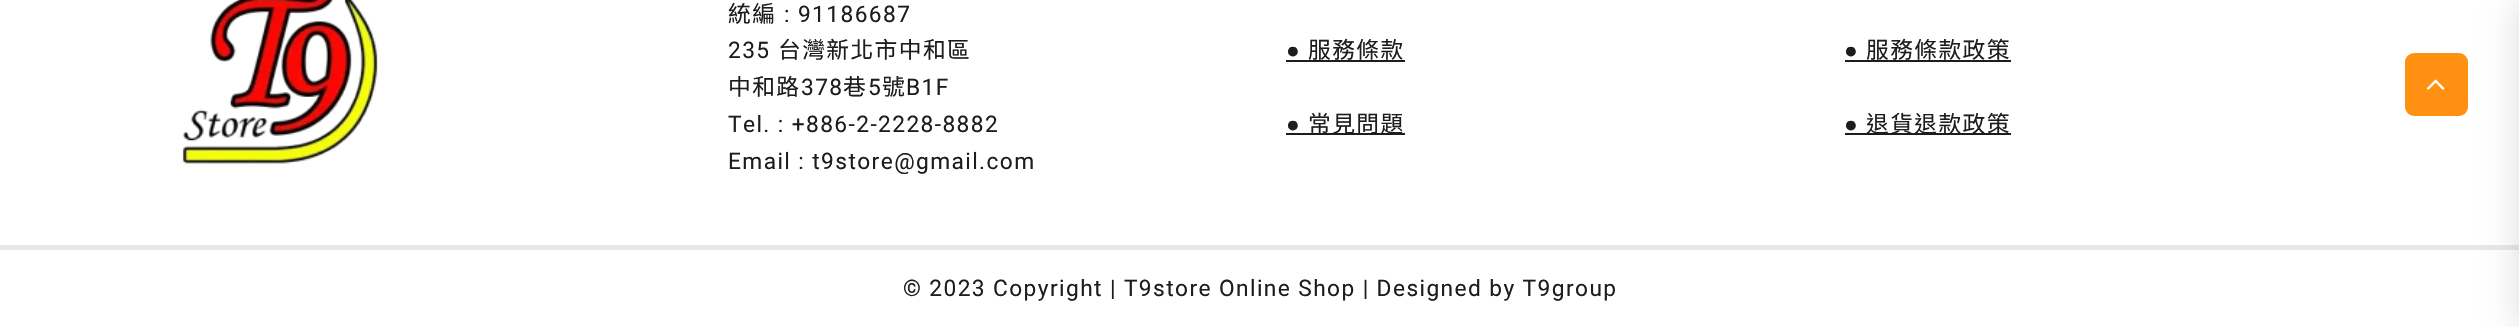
#include "include/core/SkBlurTypes.h"
#include "include/core/SkCanvas.h"
#include "include/core/SkData.h"
#include "include/core/SkFont.h"
#include "include/core/SkFontMgr.h"
#include "include/core/SkImage.h"
#include "include/core/SkMaskFilter.h"
#include "include/core/SkPaint.h"
#include "include/core/SkPathBuilder.h"
#include "include/core/SkTextBlob.h"
#include "include/effects/SkDashPathEffect.h"
#include "include/effects/SkGradientShader.h"
#include "include/utils/SkParsePath.h"

extern sk_sp<SkFontMgr> fontMgr;

void draw(SkCanvas* canvas) {
  SkPaint p;
  p.setAntiAlias(true);
  auto spacedText = [&](const char* s, float x, float y, const SkFont& font, const SkPaint& ink, float letter, float word) {
    std::vector<SkGlyphID> glyphs(font.countText(s, strlen(s), SkTextEncoding::kUTF8));
    std::vector<float> xs(glyphs.size());
    font.textToGlyphs(s, strlen(s), SkTextEncoding::kUTF8, glyphs);
    font.getXPos(glyphs, xs, x);
    float extra = 0;
    for (size_t i = 0; i < glyphs.size(); i++) {
      xs[i] += extra;
      extra += letter + word * (glyphs[i] == font.unicharToGlyph(' '));
    }
    canvas->drawTextBlob(SkTextBlob::MakeFromPosHGlyphs(glyphs, xs, y, font), 0, 0, ink);
  };
  canvas->clear(SK_ColorWHITE);
  canvas->drawImageRect(SkImages::DeferredFromEncodedData(SkData::MakeFromFileName("images/1.png")), SkRect::MakeLTRB(182, 0, 378, 164), SkSamplingOptions());
  p.setColor(SkColorSetRGB(28, 29, 30));
  canvas->drawRect(SkRect::MakeLTRB(1286, 60, 1405, 62), p);
  canvas->drawRect(SkRect::MakeLTRB(1286, 133, 1405, 135), p);
  canvas->drawRect(SkRect::MakeLTRB(1845, 60, 2011, 62), p);
  canvas->drawRect(SkRect::MakeLTRB(1845, 133, 2011, 135), p);
  p.setColor(SkColorSetRGB(232, 232, 232));
  canvas->drawRect(SkRect::MakeLTRB(0, 245, 2519, 250), p);
  p.setColor(SkColorSetRGB(255, 144, 17));
  canvas->drawRoundRect(SkRect::MakeLTRB(2405, 53, 2468, 116), 9, 9, p);
  p.setColor(SkColorSetARGB(38, 0, 0, 0));
  p.setMaskFilter(SkMaskFilter::MakeBlur(kNormal_SkBlurStyle, 17.5f));
  canvas->drawRoundRect(SkRect::MakeLTRB(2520, 0, 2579, 327), 7, 7, p);
  p.setMaskFilter(nullptr);
  canvas->drawImageRect(SkImages::DeferredFromEncodedData(SkData::MakeFromFileName("images/2.png")), SkRect::MakeLTRB(2426, 79, 2445, 90), SkSamplingOptions());
  SkFont font1(fontMgr->matchFamilyStyle("Noto Sans CJK TC", SkFontStyle::Normal()), 22.75f);
  font1.setSubpixel(true);
  p.setColor(SkColorSetRGB(28, 29, 30));
  spacedText("統編", 728, 22, font1, p, 1.4f, 0);
  SkFont font2(fontMgr->matchFamilyStyle("Roboto", SkFontStyle::Normal()), 22.75f);
  font2.setSubpixel(true);
  spacedText(": 91186687", 784, 22, font2, p, 1.4f, 0);
  spacedText("235", 728, 58, font2, p, 1.4f, 0);
  spacedText("台灣新北市中和區", 778, 58, font1, p, 1.4f, 0);
  spacedText("中和路", 728, 95, font1, p, 1.4f, 0);
  spacedText("378", 801, 95, font2, p, 1.4f, 0);
  spacedText("巷", 843, 95, font1, p, 1.4f, 0);
  spacedText("5", 868, 95, font2, p, 1.4f, 0);
  spacedText("號", 882, 95, font1, p, 1.4f, 0);
  spacedText("B1F", 906, 95, font2, p, 1.4f, 0);
  spacedText("Tel. : +886-2-2228-8882", 728, 132, font2, p, 1.4f, 0);
  spacedText("Email : t9store@gmail.com", 728, 169, font2, p, 1.4f, 0);
  SkFont font3(fontMgr->matchFamilyStyle("Liberation Sans", SkFontStyle::Normal()), 22.75f);
  font3.setSubpixel(true);
  spacedText("●", 1286, 58, font3, p, 1.4f, 0);
  spacedText("服務條款", 1308, 58, font1, p, 1.4f, 0);
  spacedText("●", 1286, 132, font3, p, 1.4f, 0);
  spacedText("常見問題", 1308, 132, font1, p, 1.4f, 0);
  spacedText("●", 1844, 58, font3, p, 1.4f, 0);
  spacedText("服務條款政策", 1866, 58, font1, p, 1.4f, 0);
  spacedText("●", 1844, 132, font3, p, 1.4f, 0);
  spacedText("退貨退款政策", 1866, 132, font1, p, 1.4f, 0);
  spacedText("© 2023 Copyright | T9store Online Shop | Designed by T9group", 903, 296, font2, p, 1.4f, 0);
}
